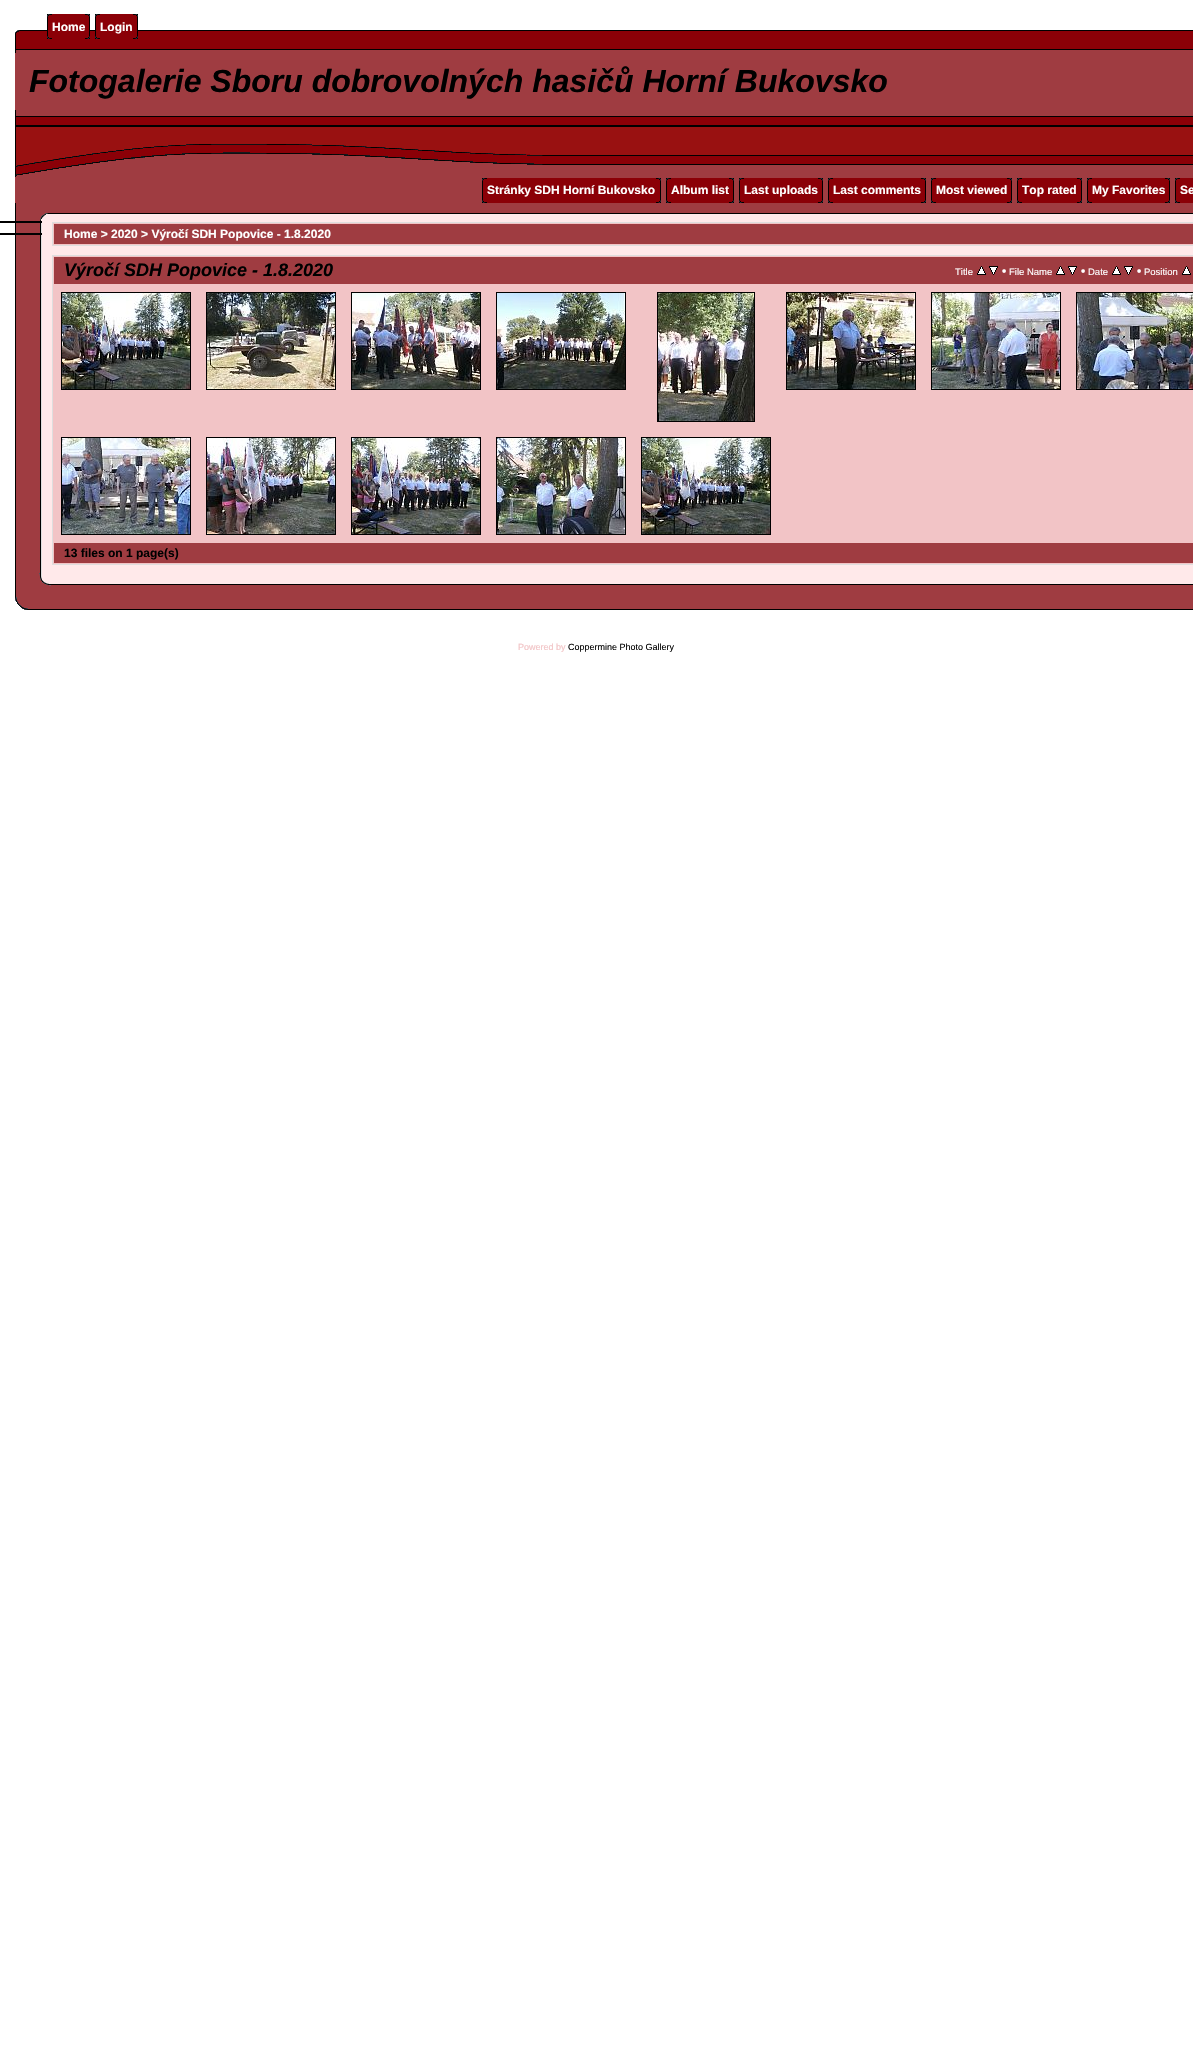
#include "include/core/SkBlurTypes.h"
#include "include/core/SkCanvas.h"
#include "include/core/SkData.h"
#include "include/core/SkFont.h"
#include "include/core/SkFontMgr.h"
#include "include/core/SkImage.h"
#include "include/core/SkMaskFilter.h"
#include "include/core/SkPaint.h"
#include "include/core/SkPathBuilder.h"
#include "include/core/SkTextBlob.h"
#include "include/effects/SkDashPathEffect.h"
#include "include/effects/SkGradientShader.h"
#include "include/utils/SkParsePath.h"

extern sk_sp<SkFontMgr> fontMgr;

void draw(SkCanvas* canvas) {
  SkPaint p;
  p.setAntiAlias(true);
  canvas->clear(SK_ColorWHITE);
  canvas->drawImageRect(SkImages::DeferredFromEncodedData(SkData::MakeFromFileName("images/1.png")), SkRect::MakeLTRB(42, 30, 1193, 53), SkSamplingOptions());
  canvas->drawImageRect(SkImages::DeferredFromEncodedData(SkData::MakeFromFileName("images/2.png")), SkRect::MakeLTRB(47, 14, 52, 39), SkSamplingOptions());
  p.setColor(SkColorSetRGB(139, 0, 7));
  canvas->drawRect(SkRect::MakeLTRB(52, 14, 85, 31), p);
  canvas->drawImageRect(SkImages::DeferredFromEncodedData(SkData::MakeFromFileName("images/3.png")), SkRect::MakeLTRB(85, 14, 90, 39), SkSamplingOptions());
  canvas->drawImageRect(SkImages::DeferredFromEncodedData(SkData::MakeFromFileName("images/2.png")), SkRect::MakeLTRB(95, 14, 100, 39), SkSamplingOptions());
  canvas->drawRect(SkRect::MakeLTRB(100, 14, 133, 31), p);
  canvas->drawImageRect(SkImages::DeferredFromEncodedData(SkData::MakeFromFileName("images/3.png")), SkRect::MakeLTRB(133, 14, 138, 39), SkSamplingOptions());
  canvas->drawImageRect(SkImages::DeferredFromEncodedData(SkData::MakeFromFileName("images/4.png")), SkRect::MakeLTRB(15, 30, 42, 53), SkSamplingOptions());
  p.setColor(SkColorSetRGB(159, 60, 65));
  canvas->drawRect(SkRect::MakeLTRB(15, 53, 1193, 110), p);
  canvas->drawImageRect(SkImages::DeferredFromEncodedData(SkData::MakeFromFileName("images/5.png")), SkRect::MakeLTRB(15, 110, 560, 177), SkSamplingOptions());
  canvas->drawImageRect(SkImages::DeferredFromEncodedData(SkData::MakeFromFileName("images/6.png")), SkRect::MakeLTRB(560, 110, 1193, 177), SkSamplingOptions());
  canvas->drawRect(SkRect::MakeLTRB(15, 177, 1193, 203), p);
  canvas->drawImageRect(SkImages::DeferredFromEncodedData(SkData::MakeFromFileName("images/2.png")), SkRect::MakeLTRB(482, 178, 487, 203), SkSamplingOptions());
  p.setColor(SkColorSetRGB(139, 0, 7));
  canvas->drawRect(SkRect::MakeLTRB(487, 178, 656, 203), p);
  canvas->drawImageRect(SkImages::DeferredFromEncodedData(SkData::MakeFromFileName("images/3.png")), SkRect::MakeLTRB(656, 178, 661, 203), SkSamplingOptions());
  canvas->drawImageRect(SkImages::DeferredFromEncodedData(SkData::MakeFromFileName("images/2.png")), SkRect::MakeLTRB(666, 178, 671, 203), SkSamplingOptions());
  canvas->drawRect(SkRect::MakeLTRB(671, 178, 729, 203), p);
  canvas->drawImageRect(SkImages::DeferredFromEncodedData(SkData::MakeFromFileName("images/3.png")), SkRect::MakeLTRB(729, 178, 734, 203), SkSamplingOptions());
  canvas->drawImageRect(SkImages::DeferredFromEncodedData(SkData::MakeFromFileName("images/2.png")), SkRect::MakeLTRB(739, 178, 744, 203), SkSamplingOptions());
  canvas->drawRect(SkRect::MakeLTRB(744, 178, 818, 203), p);
  canvas->drawImageRect(SkImages::DeferredFromEncodedData(SkData::MakeFromFileName("images/3.png")), SkRect::MakeLTRB(818, 178, 823, 203), SkSamplingOptions());
  canvas->drawImageRect(SkImages::DeferredFromEncodedData(SkData::MakeFromFileName("images/2.png")), SkRect::MakeLTRB(828, 178, 833, 203), SkSamplingOptions());
  canvas->drawRect(SkRect::MakeLTRB(833, 178, 921, 203), p);
  canvas->drawImageRect(SkImages::DeferredFromEncodedData(SkData::MakeFromFileName("images/3.png")), SkRect::MakeLTRB(921, 178, 926, 203), SkSamplingOptions());
  canvas->drawImageRect(SkImages::DeferredFromEncodedData(SkData::MakeFromFileName("images/2.png")), SkRect::MakeLTRB(931, 178, 936, 203), SkSamplingOptions());
  canvas->drawRect(SkRect::MakeLTRB(936, 178, 1007, 203), p);
  canvas->drawImageRect(SkImages::DeferredFromEncodedData(SkData::MakeFromFileName("images/3.png")), SkRect::MakeLTRB(1007, 178, 1012, 203), SkSamplingOptions());
  canvas->drawImageRect(SkImages::DeferredFromEncodedData(SkData::MakeFromFileName("images/2.png")), SkRect::MakeLTRB(1017, 178, 1022, 203), SkSamplingOptions());
  canvas->drawRect(SkRect::MakeLTRB(1022, 178, 1077, 203), p);
  canvas->drawImageRect(SkImages::DeferredFromEncodedData(SkData::MakeFromFileName("images/3.png")), SkRect::MakeLTRB(1077, 178, 1082, 203), SkSamplingOptions());
  canvas->drawImageRect(SkImages::DeferredFromEncodedData(SkData::MakeFromFileName("images/2.png")), SkRect::MakeLTRB(1087, 178, 1092, 203), SkSamplingOptions());
  canvas->drawRect(SkRect::MakeLTRB(1092, 178, 1165, 203), p);
  canvas->drawImageRect(SkImages::DeferredFromEncodedData(SkData::MakeFromFileName("images/3.png")), SkRect::MakeLTRB(1165, 178, 1170, 203), SkSamplingOptions());
  canvas->drawImageRect(SkImages::DeferredFromEncodedData(SkData::MakeFromFileName("images/2.png")), SkRect::MakeLTRB(1175, 178, 1180, 203), SkSamplingOptions());
  canvas->drawRect(SkRect::MakeLTRB(1180, 178, 1193, 203), p);
  canvas->drawImageRect(SkImages::DeferredFromEncodedData(SkData::MakeFromFileName("images/7.png")), SkRect::MakeLTRB(15, 203, 42, 221), SkSamplingOptions());
  canvas->drawImageRect(SkImages::DeferredFromEncodedData(SkData::MakeFromFileName("images/8.png")), SkRect::MakeLTRB(42, 203, 56, 221), SkSamplingOptions());
  canvas->drawImageRect(SkImages::DeferredFromEncodedData(SkData::MakeFromFileName("images/9.png")), SkRect::MakeLTRB(56, 203, 1193, 221), SkSamplingOptions());
  canvas->drawImageRect(SkImages::DeferredFromEncodedData(SkData::MakeFromFileName("images/10.png")), SkRect::MakeLTRB(0, 221, 42, 573), SkSamplingOptions());
  canvas->drawImageRect(SkImages::DeferredFromEncodedData(SkData::MakeFromFileName("images/11.png")), SkRect::MakeLTRB(0, 233, 42, 551), SkSamplingOptions());
  p.setColor(SkColorSetRGB(255, 233, 234));
  canvas->drawRect(SkRect::MakeLTRB(42, 221, 1193, 573), p);
  p.setColor(SkColorSetRGB(242, 196, 198));
  canvas->drawRect(SkRect::MakeLTRB(52.5f, 222.5f, 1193.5f, 245.5f), p);
  p.setStyle(SkPaint::kStroke_Style);
  p.setStrokeWidth(1);
  p.setColor(SkColorSetRGB(222, 222, 222));
  canvas->drawRect(SkRect::MakeLTRB(52.5f, 222.5f, 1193.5f, 245.5f), p);
  p.setStyle(SkPaint::kFill_Style);
  p.setColor(SkColorSetRGB(159, 60, 65));
  canvas->drawRect(SkRect::MakeLTRB(54, 224, 1193, 244), p);
  p.setColor(SkColorSetRGB(242, 196, 198));
  canvas->drawRect(SkRect::MakeLTRB(52.5f, 255.5f, 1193.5f, 564.5f), p);
  p.setStyle(SkPaint::kStroke_Style);
  p.setColor(SkColorSetRGB(222, 222, 222));
  canvas->drawRect(SkRect::MakeLTRB(52.5f, 255.5f, 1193.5f, 564.5f), p);
  p.setStyle(SkPaint::kFill_Style);
  p.setColor(SkColorSetRGB(159, 60, 65));
  canvas->drawRect(SkRect::MakeLTRB(54, 257, 1193, 284), p);
  canvas->drawImageRect(SkImages::DeferredFromEncodedData(SkData::MakeFromFileName("images/12.png")), SkRect::MakeLTRB(977, 266, 986, 275), SkSamplingOptions());
  canvas->drawImageRect(SkImages::DeferredFromEncodedData(SkData::MakeFromFileName("images/13.png")), SkRect::MakeLTRB(989, 266, 998, 275), SkSamplingOptions());
  canvas->drawImageRect(SkImages::DeferredFromEncodedData(SkData::MakeFromFileName("images/12.png")), SkRect::MakeLTRB(1056, 266, 1065, 275), SkSamplingOptions());
  canvas->drawImageRect(SkImages::DeferredFromEncodedData(SkData::MakeFromFileName("images/13.png")), SkRect::MakeLTRB(1068, 266, 1077, 275), SkSamplingOptions());
  canvas->drawImageRect(SkImages::DeferredFromEncodedData(SkData::MakeFromFileName("images/12.png")), SkRect::MakeLTRB(1112, 266, 1121, 275), SkSamplingOptions());
  canvas->drawImageRect(SkImages::DeferredFromEncodedData(SkData::MakeFromFileName("images/13.png")), SkRect::MakeLTRB(1124, 266, 1133, 275), SkSamplingOptions());
  canvas->drawImageRect(SkImages::DeferredFromEncodedData(SkData::MakeFromFileName("images/12.png")), SkRect::MakeLTRB(1182, 266, 1191, 275), SkSamplingOptions());
  p.setStyle(SkPaint::kStroke_Style);
  p.setColor(SK_ColorBLACK);
  canvas->drawRect(SkRect::MakeLTRB(61.5f, 292.5f, 190.5f, 389.5f), p);
  canvas->drawImageRect(SkImages::DeferredFromEncodedData(SkData::MakeFromFileName("images/14.png")), SkRect::MakeLTRB(62, 293, 190, 389), SkSamplingOptions());
  canvas->drawRect(SkRect::MakeLTRB(206.5f, 292.5f, 335.5f, 389.5f), p);
  canvas->drawImageRect(SkImages::DeferredFromEncodedData(SkData::MakeFromFileName("images/15.png")), SkRect::MakeLTRB(207, 293, 335, 389), SkSamplingOptions());
  canvas->drawRect(SkRect::MakeLTRB(351.5f, 292.5f, 480.5f, 389.5f), p);
  canvas->drawImageRect(SkImages::DeferredFromEncodedData(SkData::MakeFromFileName("images/16.png")), SkRect::MakeLTRB(352, 293, 480, 389), SkSamplingOptions());
  canvas->drawRect(SkRect::MakeLTRB(496.5f, 292.5f, 625.5f, 389.5f), p);
  canvas->drawImageRect(SkImages::DeferredFromEncodedData(SkData::MakeFromFileName("images/17.png")), SkRect::MakeLTRB(497, 293, 625, 389), SkSamplingOptions());
  canvas->drawRect(SkRect::MakeLTRB(657.5f, 292.5f, 754.5f, 421.5f), p);
  canvas->drawImageRect(SkImages::DeferredFromEncodedData(SkData::MakeFromFileName("images/18.png")), SkRect::MakeLTRB(658, 293, 754, 421), SkSamplingOptions());
  canvas->drawRect(SkRect::MakeLTRB(786.5f, 292.5f, 915.5f, 389.5f), p);
  canvas->drawImageRect(SkImages::DeferredFromEncodedData(SkData::MakeFromFileName("images/19.png")), SkRect::MakeLTRB(787, 293, 915, 389), SkSamplingOptions());
  canvas->drawRect(SkRect::MakeLTRB(931.5f, 292.5f, 1060.5f, 389.5f), p);
  canvas->drawImageRect(SkImages::DeferredFromEncodedData(SkData::MakeFromFileName("images/20.png")), SkRect::MakeLTRB(932, 293, 1060, 389), SkSamplingOptions());
  canvas->drawRect(SkRect::MakeLTRB(1076.5f, 292.5f, 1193.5f, 389.5f), p);
  canvas->drawImageRect(SkImages::DeferredFromEncodedData(SkData::MakeFromFileName("images/21.png")), SkRect::MakeLTRB(1077, 293, 1193, 389), SkSamplingOptions());
  canvas->drawRect(SkRect::MakeLTRB(61.5f, 437.5f, 190.5f, 534.5f), p);
  canvas->drawImageRect(SkImages::DeferredFromEncodedData(SkData::MakeFromFileName("images/22.png")), SkRect::MakeLTRB(62, 438, 190, 534), SkSamplingOptions());
  canvas->drawRect(SkRect::MakeLTRB(206.5f, 437.5f, 335.5f, 534.5f), p);
  canvas->drawImageRect(SkImages::DeferredFromEncodedData(SkData::MakeFromFileName("images/23.png")), SkRect::MakeLTRB(207, 438, 335, 534), SkSamplingOptions());
  canvas->drawRect(SkRect::MakeLTRB(351.5f, 437.5f, 480.5f, 534.5f), p);
  canvas->drawImageRect(SkImages::DeferredFromEncodedData(SkData::MakeFromFileName("images/24.png")), SkRect::MakeLTRB(352, 438, 480, 534), SkSamplingOptions());
  canvas->drawRect(SkRect::MakeLTRB(496.5f, 437.5f, 625.5f, 534.5f), p);
  canvas->drawImageRect(SkImages::DeferredFromEncodedData(SkData::MakeFromFileName("images/25.png")), SkRect::MakeLTRB(497, 438, 625, 534), SkSamplingOptions());
  canvas->drawRect(SkRect::MakeLTRB(641.5f, 437.5f, 770.5f, 534.5f), p);
  canvas->drawImageRect(SkImages::DeferredFromEncodedData(SkData::MakeFromFileName("images/14.png")), SkRect::MakeLTRB(642, 438, 770, 534), SkSamplingOptions());
  p.setStyle(SkPaint::kFill_Style);
  p.setColor(SkColorSetRGB(159, 60, 65));
  canvas->drawRect(SkRect::MakeLTRB(54, 543, 1193, 563), p);
  canvas->drawImageRect(SkImages::DeferredFromEncodedData(SkData::MakeFromFileName("images/26.png")), SkRect::MakeLTRB(15, 573, 42, 610), SkSamplingOptions());
  canvas->drawImageRect(SkImages::DeferredFromEncodedData(SkData::MakeFromFileName("images/27.png")), SkRect::MakeLTRB(42, 573, 250, 610), SkSamplingOptions());
  canvas->drawImageRect(SkImages::DeferredFromEncodedData(SkData::MakeFromFileName("images/28.png")), SkRect::MakeLTRB(250, 573, 1017, 610), SkSamplingOptions());
  canvas->drawImageRect(SkImages::DeferredFromEncodedData(SkData::MakeFromFileName("images/29.png")), SkRect::MakeLTRB(1017, 573, 1193, 610), SkSamplingOptions());
  SkFont font1(fontMgr->matchFamilyStyle("Liberation Sans", SkFontStyle::Bold()), 12);
  font1.setSubpixel(true);
  p.setColor(SK_ColorWHITE);
  canvas->drawString("Home", 52, 31, font1, p);
  canvas->drawString("Login", 100, 31, font1, p);
  SkFont font2(fontMgr->matchFamilyStyle("Liberation Sans", SkFontStyle::BoldItalic()), 32);
  font2.setSubpixel(true);
  p.setColor(SK_ColorBLACK);
  canvas->drawString("Fotogalerie Sboru dobrovolných hasičů Horní Bukovsko", 29, 92, font2, p);
  p.setColor(SK_ColorWHITE);
  canvas->drawString("Stránky SDH Horní Bukovsko", 487, 194, font1, p);
  canvas->drawString("Album list", 671, 194, font1, p);
  canvas->drawString("Last uploads", 744, 194, font1, p);
  canvas->drawString("Last comments", 833, 194, font1, p);
  canvas->drawString("Most viewed", 936, 194, font1, p);
  canvas->drawString("Top rated", 1022, 194, font1, p);
  canvas->drawString("My Favorites", 1092, 194, font1, p);
  canvas->drawString("Se", 1180, 194, font1, p);
  canvas->drawString("Home > 2020 > Výročí SDH Popovice - 1.8.2020", 64, 238, font1, p);
  SkFont font3(fontMgr->matchFamilyStyle("Liberation Sans", SkFontStyle::BoldItalic()), 18);
  font3.setSubpixel(true);
  p.setColor(SK_ColorBLACK);
  canvas->drawString("Výročí SDH Popovice - 1.8.2020", 64, 276, font3, p);
  SkFont font4(fontMgr->matchFamilyStyle("Liberation Sans", SkFontStyle::Normal()), 9.5f);
  font4.setSubpixel(true);
  p.setColor(SK_ColorWHITE);
  canvas->drawString("Title", 955, 275, font4, p);
  canvas->drawString("•", 1002, 275, font1, p);
  canvas->drawString("File Name", 1009, 275, font4, p);
  canvas->drawString("•", 1081, 275, font1, p);
  canvas->drawString("Date", 1088, 275, font4, p);
  canvas->drawString("•", 1137, 275, font1, p);
  canvas->drawString("Position", 1144, 275, font4, p);
  p.setColor(SK_ColorBLACK);
  canvas->drawString("13 files on 1 page(s)", 64, 557, font1, p);
  SkFont font5(fontMgr->matchFamilyStyle("Liberation Sans", SkFontStyle::Normal()), 9);
  font5.setSubpixel(true);
  p.setColor(SkColorSetRGB(242, 196, 198));
  canvas->drawString("Powered by", 518, 650, font5, p);
  p.setColor(SK_ColorBLACK);
  canvas->drawString("Coppermine Photo Gallery", 568, 650, font5, p);
}
